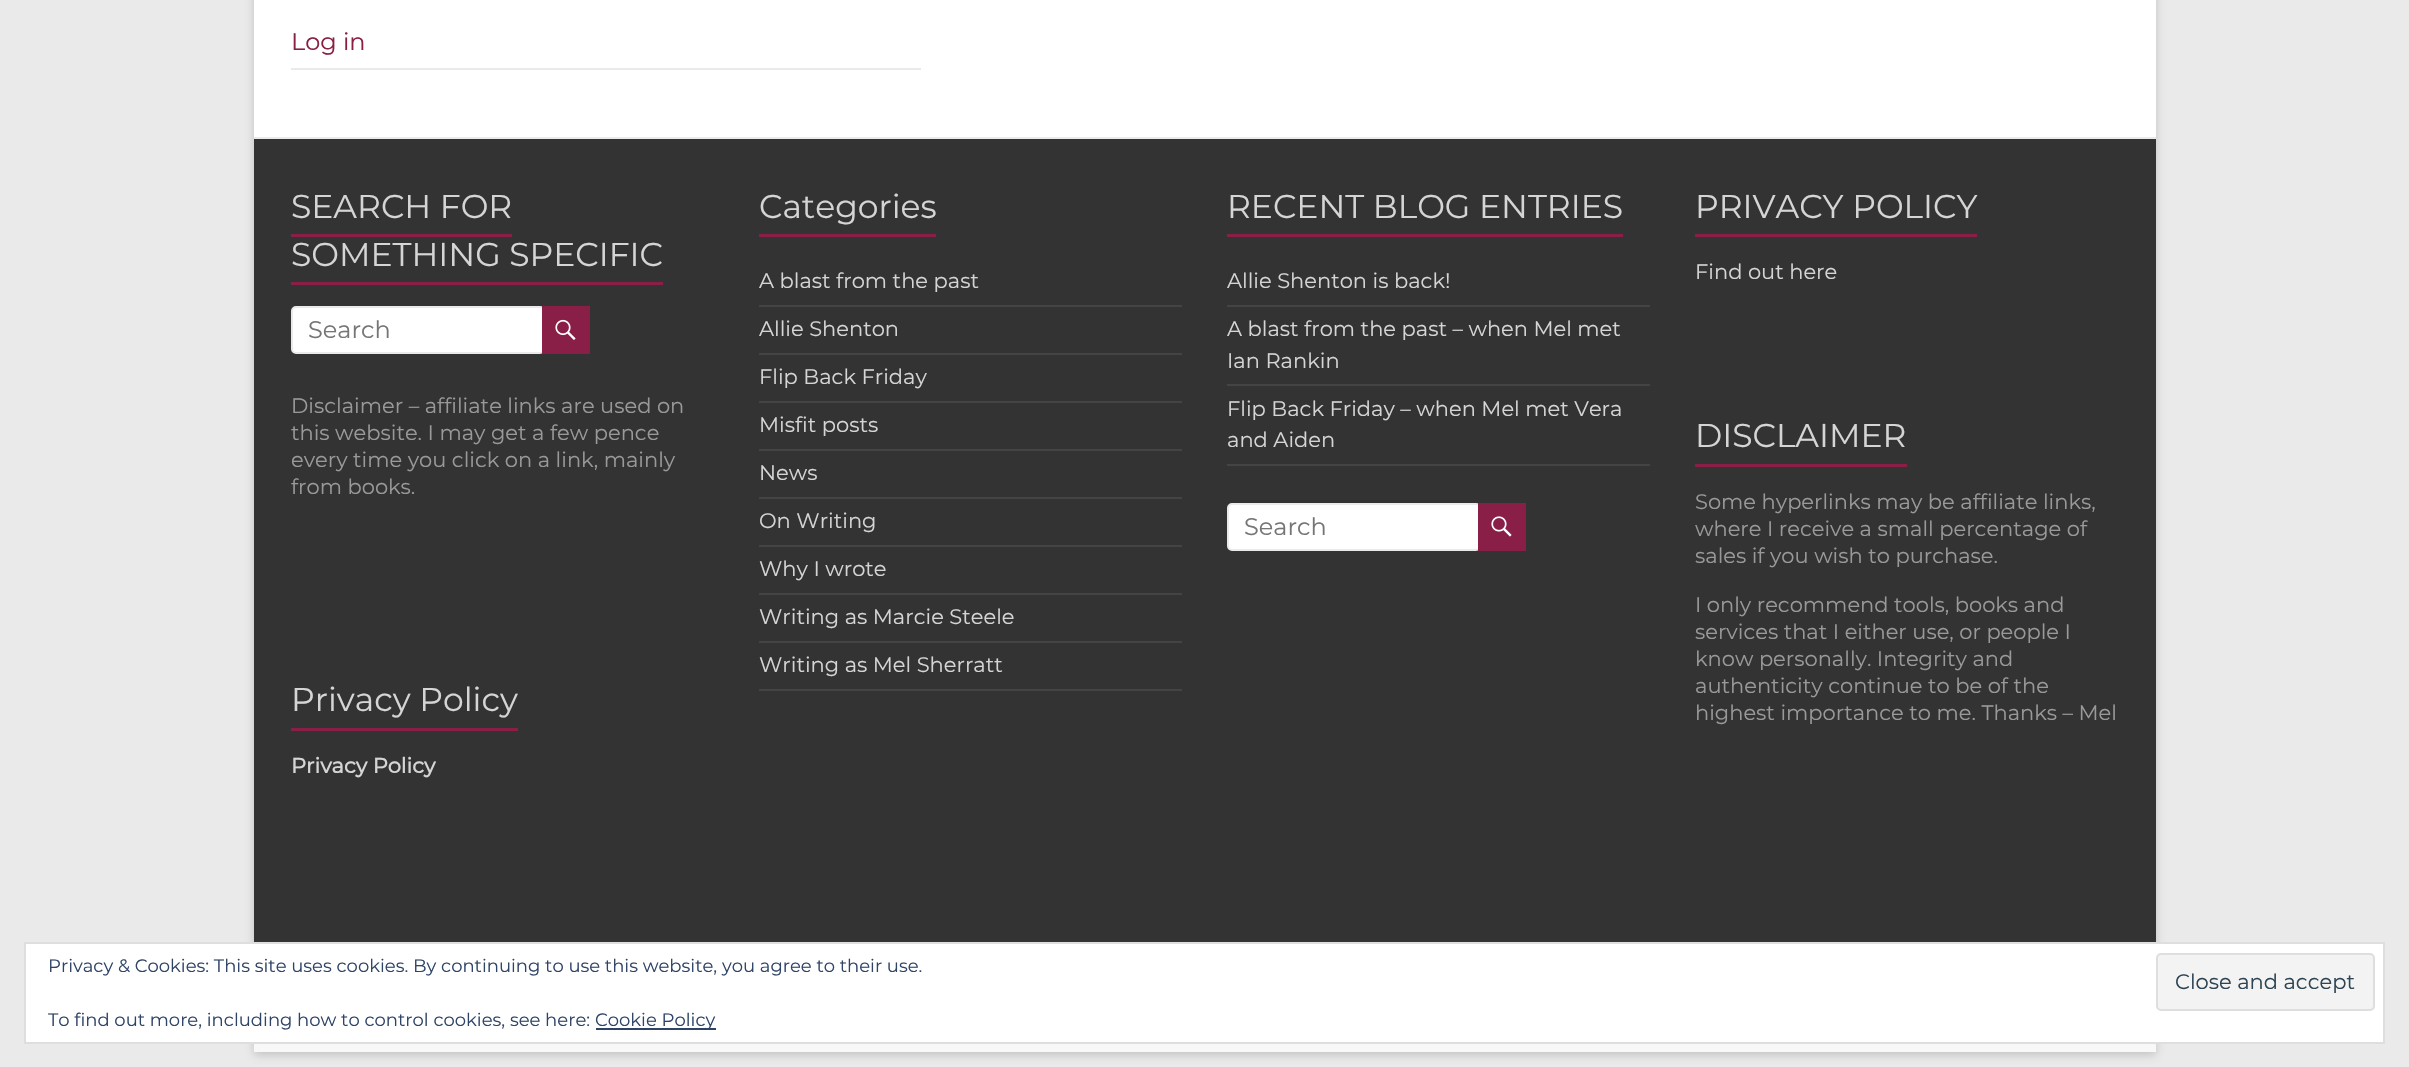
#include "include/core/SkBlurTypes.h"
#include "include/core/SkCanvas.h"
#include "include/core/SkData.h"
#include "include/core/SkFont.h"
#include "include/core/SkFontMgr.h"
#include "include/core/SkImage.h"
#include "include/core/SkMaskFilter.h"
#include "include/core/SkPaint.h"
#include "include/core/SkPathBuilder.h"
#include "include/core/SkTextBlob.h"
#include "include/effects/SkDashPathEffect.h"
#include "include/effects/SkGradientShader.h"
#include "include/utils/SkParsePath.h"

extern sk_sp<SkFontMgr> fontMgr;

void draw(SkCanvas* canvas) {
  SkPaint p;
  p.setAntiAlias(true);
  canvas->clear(SkColorSetRGB(234, 234, 234));
  p.setColor(SkColorSetARGB(77, 100, 100, 100));
  p.setMaskFilter(SkMaskFilter::MakeBlur(kNormal_SkBlurStyle, 4.5f));
  canvas->drawRect(SkRect::MakeLTRB(254, -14, 2156, 1055), p);
  p.setMaskFilter(nullptr);
  p.setColor(SK_ColorWHITE);
  canvas->drawRect(SkRect::MakeLTRB(254, 0, 2156, 137), p);
  p.setColor(SkColorSetRGB(234, 234, 234));
  canvas->drawRect(SkRect::MakeLTRB(291, 68, 921, 70), p);
  p.setColor(SkColorSetRGB(51, 51, 51));
  canvas->drawRect(SkRect::MakeLTRB(254, 139, 2156, 942), p);
  p.setColor(SkColorSetRGB(234, 234, 234));
  canvas->drawRect(SkRect::MakeLTRB(254, 137, 2156, 139), p);
  p.setColor(SkColorSetRGB(137, 31, 70));
  canvas->drawRect(SkRect::MakeLTRB(291, 234, 512, 237), p);
  canvas->drawRect(SkRect::MakeLTRB(291, 282, 663, 285), p);
  p.setColor(SK_ColorWHITE);
  canvas->drawRoundRect(SkRect::MakeLTRB(292, 307, 544, 353), 4, 4, p);
  p.setStyle(SkPaint::kStroke_Style);
  p.setStrokeWidth(2);
  p.setColor(SkColorSetRGB(234, 234, 234));
  canvas->drawRoundRect(SkRect::MakeLTRB(292, 307, 544, 353), 4, 4, p);
  p.setStyle(SkPaint::kFill_Style);
  p.setColor(SkColorSetRGB(137, 31, 70));
  canvas->drawRect(SkRect::MakeLTRB(542, 306, 590, 354), p);
  canvas->drawImageRect(SkImages::DeferredFromEncodedData(SkData::MakeFromFileName("images/1.png")), SkRect::MakeLTRB(555, 319, 576, 340), SkSamplingOptions());
  canvas->drawRect(SkRect::MakeLTRB(291, 728, 518, 731), p);
  canvas->drawRect(SkRect::MakeLTRB(759, 234, 936, 237), p);
  p.setColor(SkColorSetRGB(68, 68, 68));
  canvas->drawRect(SkRect::MakeLTRB(759, 305, 1182, 307), p);
  canvas->drawRect(SkRect::MakeLTRB(759, 353, 1182, 355), p);
  canvas->drawRect(SkRect::MakeLTRB(759, 401, 1182, 403), p);
  canvas->drawRect(SkRect::MakeLTRB(759, 449, 1182, 451), p);
  canvas->drawRect(SkRect::MakeLTRB(759, 497, 1182, 499), p);
  canvas->drawRect(SkRect::MakeLTRB(759, 545, 1182, 547), p);
  canvas->drawRect(SkRect::MakeLTRB(759, 593, 1182, 595), p);
  canvas->drawRect(SkRect::MakeLTRB(759, 641, 1182, 643), p);
  canvas->drawRect(SkRect::MakeLTRB(759, 689, 1182, 691), p);
  p.setColor(SkColorSetRGB(137, 31, 70));
  canvas->drawRect(SkRect::MakeLTRB(1227, 234, 1623, 237), p);
  p.setColor(SkColorSetRGB(68, 68, 68));
  canvas->drawRect(SkRect::MakeLTRB(1227, 305, 1650, 307), p);
  canvas->drawRect(SkRect::MakeLTRB(1227, 384, 1650, 386), p);
  canvas->drawRect(SkRect::MakeLTRB(1227, 464, 1650, 466), p);
  p.setColor(SK_ColorWHITE);
  canvas->drawRoundRect(SkRect::MakeLTRB(1228, 504, 1480, 550), 4, 4, p);
  p.setStyle(SkPaint::kStroke_Style);
  p.setColor(SkColorSetRGB(234, 234, 234));
  canvas->drawRoundRect(SkRect::MakeLTRB(1228, 504, 1480, 550), 4, 4, p);
  p.setStyle(SkPaint::kFill_Style);
  p.setColor(SkColorSetRGB(137, 31, 70));
  canvas->drawRect(SkRect::MakeLTRB(1478, 503, 1526, 551), p);
  canvas->drawImageRect(SkImages::DeferredFromEncodedData(SkData::MakeFromFileName("images/2.png")), SkRect::MakeLTRB(1491, 516, 1512, 537), SkSamplingOptions());
  canvas->drawRect(SkRect::MakeLTRB(1695, 234, 1977, 237), p);
  canvas->drawRect(SkRect::MakeLTRB(1695, 464, 1907, 467), p);
  p.setColor(SkColorSetRGB(248, 248, 248));
  canvas->drawRect(SkRect::MakeLTRB(254, 1044, 2156, 1052), p);
  p.setColor(SK_ColorWHITE);
  canvas->drawRect(SkRect::MakeLTRB(25, 943, 2384, 1043), p);
  p.setStyle(SkPaint::kStroke_Style);
  p.setColor(SkColorSetRGB(222, 222, 222));
  canvas->drawRect(SkRect::MakeLTRB(25, 943, 2384, 1043), p);
  p.setStyle(SkPaint::kFill_Style);
  p.setColor(SkColorSetRGB(243, 243, 243));
  canvas->drawRoundRect(SkRect::MakeLTRB(2157, 954, 2374, 1010), 4, 4, p);
  p.setStyle(SkPaint::kStroke_Style);
  p.setColor(SkColorSetRGB(222, 222, 222));
  canvas->drawRoundRect(SkRect::MakeLTRB(2157, 954, 2374, 1010), 4, 4, p);
  p.setStyle(SkPaint::kFill_Style);
  p.setColor(SkColorSetRGB(46, 68, 103));
  canvas->drawRect(SkRect::MakeLTRB(596, 1028, 716, 1030), p);
  SkFont font1(fontMgr->matchFamilyStyle("Montserrat", SkFontStyle(100, SkFontStyle::kNormal_Width, SkFontStyle::kUpright_Slant)), 24);
  font1.setSubpixel(true);
  p.setColor(SkColorSetRGB(137, 31, 70));
  canvas->drawString("Log in", 291, 50, font1, p);
  SkFont font2(fontMgr->matchFamilyStyle("Montserrat", SkFontStyle(100, SkFontStyle::kNormal_Width, SkFontStyle::kUpright_Slant)), 33);
  font2.setSubpixel(true);
  p.setColor(SkColorSetRGB(213, 213, 213));
  canvas->drawString("SEARCH FOR", 291, 218, font2, p);
  canvas->drawString("SOMETHING SPECIFIC", 291, 266, font2, p);
  p.setColor(SkColorSetRGB(117, 117, 117));
  canvas->drawString("Search", 308, 338, font1, p);
  SkFont font3(fontMgr->matchFamilyStyle("Montserrat", SkFontStyle(100, SkFontStyle::kNormal_Width, SkFontStyle::kUpright_Slant)), 21);
  font3.setSubpixel(true);
  p.setColor(SkColorSetRGB(153, 153, 153));
  canvas->drawString("Disclaimer – affiliate links are used on", 291, 413, font3, p);
  canvas->drawString("this website. I may get a few pence", 291, 440, font3, p);
  canvas->drawString("every time you click on a link, mainly", 291, 467, font3, p);
  canvas->drawString("from books.", 291, 494, font3, p);
  p.setColor(SkColorSetRGB(213, 213, 213));
  canvas->drawString("Privacy Policy", 291, 711, font2, p);
  SkFont font4(fontMgr->matchFamilyStyle("Montserrat", SkFontStyle::Bold()), 21);
  font4.setSubpixel(true);
  canvas->drawString("Privacy Policy", 291, 773, font4, p);
  canvas->drawString("Categories", 759, 218, font2, p);
  canvas->drawString("A blast from the past", 759, 288, font3, p);
  canvas->drawString("Allie Shenton", 759, 336, font3, p);
  canvas->drawString("Flip Back Friday", 759, 384, font3, p);
  canvas->drawString("Misfit posts", 759, 432, font3, p);
  canvas->drawString("News", 759, 480, font3, p);
  canvas->drawString("On Writing", 759, 528, font3, p);
  canvas->drawString("Why I wrote", 759, 576, font3, p);
  canvas->drawString("Writing as Marcie Steele", 759, 624, font3, p);
  canvas->drawString("Writing as Mel Sherratt", 759, 672, font3, p);
  canvas->drawString("RECENT BLOG ENTRIES", 1227, 218, font2, p);
  canvas->drawString("Allie Shenton is back!", 1227, 288, font3, p);
  canvas->drawString("A blast from the past – when Mel met", 1227, 336, font3, p);
  canvas->drawString("Ian Rankin", 1227, 368, font3, p);
  canvas->drawString("Flip Back Friday – when Mel met Vera", 1227, 416, font3, p);
  canvas->drawString("and Aiden", 1227, 447, font3, p);
  p.setColor(SkColorSetRGB(117, 117, 117));
  canvas->drawString("Search", 1244, 535, font1, p);
  p.setColor(SkColorSetRGB(213, 213, 213));
  canvas->drawString("PRIVACY POLICY", 1695, 218, font2, p);
  canvas->drawString("Find out here", 1695, 279, font3, p);
  canvas->drawString("DISCLAIMER", 1695, 447, font2, p);
  p.setColor(SkColorSetRGB(153, 153, 153));
  canvas->drawString("Some hyperlinks may be affiliate links,", 1695, 509, font3, p);
  canvas->drawString("where I receive a small percentage of", 1695, 536, font3, p);
  canvas->drawString("sales if you wish to purchase.", 1695, 563, font3, p);
  canvas->drawString("I only recommend tools, books and", 1695, 612, font3, p);
  canvas->drawString("services that I either use, or people I", 1695, 639, font3, p);
  canvas->drawString("know personally. Integrity and", 1695, 666, font3, p);
  canvas->drawString("authenticity continue to be of the", 1695, 693, font3, p);
  canvas->drawString("highest importance to me. Thanks – Mel", 1695, 720, font3, p);
  SkFont font5(fontMgr->matchFamilyStyle("Montserrat", SkFontStyle(100, SkFontStyle::kNormal_Width, SkFontStyle::kUpright_Slant)), 18);
  font5.setSubpixel(true);
  p.setColor(SkColorSetRGB(46, 68, 103));
  canvas->drawString("Privacy & Cookies: This site uses cookies. By continuing to use this website, you agree to their use.", 48, 972, font5, p);
  p.setColor(SkColorSetRGB(46, 68, 83));
  canvas->drawString("Close and accept", 2175, 989, font3, p);
  p.setColor(SkColorSetRGB(46, 68, 103));
  canvas->drawString("To find out more, including how to control cookies, see here:", 48, 1026, font5, p);
  canvas->drawString("Cookie Policy", 595, 1026, font5, p);
}
